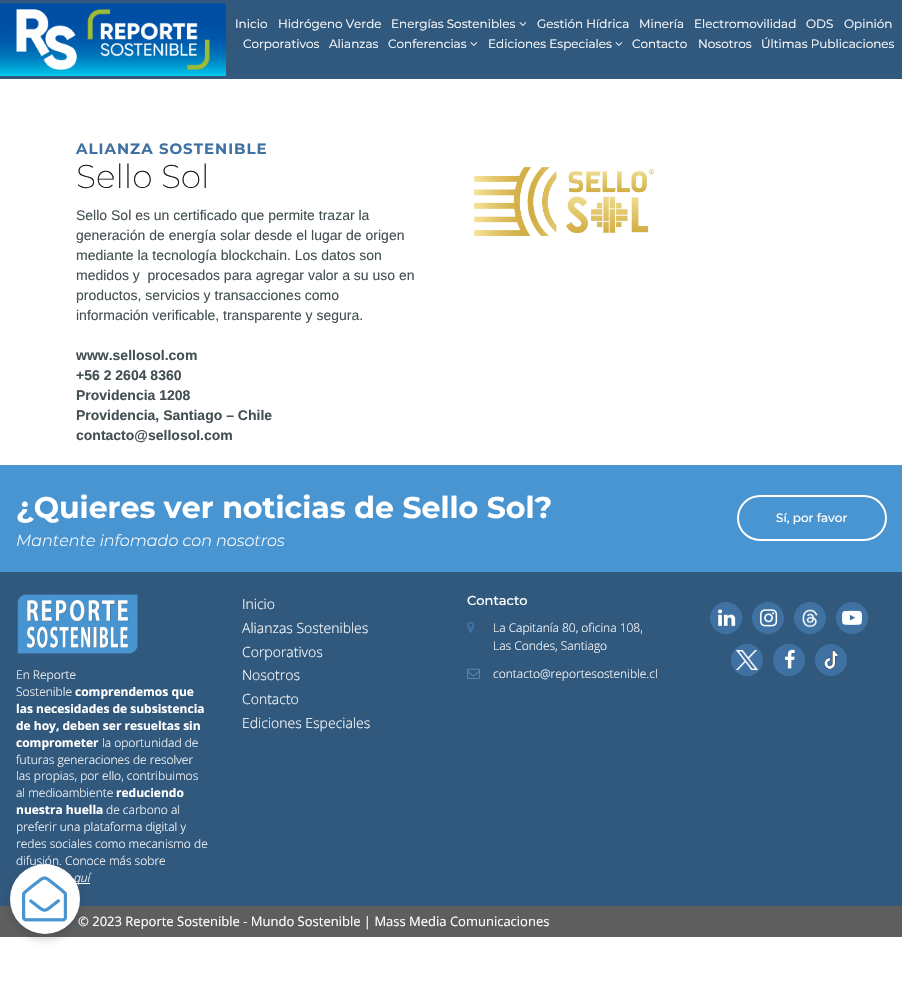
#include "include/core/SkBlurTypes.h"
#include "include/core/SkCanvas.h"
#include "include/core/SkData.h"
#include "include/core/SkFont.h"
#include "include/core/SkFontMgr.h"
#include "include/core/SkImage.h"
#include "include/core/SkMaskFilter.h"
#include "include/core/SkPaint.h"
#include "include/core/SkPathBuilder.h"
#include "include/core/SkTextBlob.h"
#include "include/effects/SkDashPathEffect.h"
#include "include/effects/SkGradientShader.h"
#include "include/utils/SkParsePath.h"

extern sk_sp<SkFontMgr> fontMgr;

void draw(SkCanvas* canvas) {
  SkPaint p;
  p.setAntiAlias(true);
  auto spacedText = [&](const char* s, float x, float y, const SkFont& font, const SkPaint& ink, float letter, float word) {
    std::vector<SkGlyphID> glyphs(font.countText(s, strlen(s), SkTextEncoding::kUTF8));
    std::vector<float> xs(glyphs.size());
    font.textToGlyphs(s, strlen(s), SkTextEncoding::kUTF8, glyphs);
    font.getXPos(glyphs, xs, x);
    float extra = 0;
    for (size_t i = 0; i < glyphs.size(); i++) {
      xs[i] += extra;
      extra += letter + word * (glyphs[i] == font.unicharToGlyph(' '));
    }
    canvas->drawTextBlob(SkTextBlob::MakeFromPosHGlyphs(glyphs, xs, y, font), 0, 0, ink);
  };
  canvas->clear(SK_ColorWHITE);
  p.setColor(SkColorSetRGB(49, 88, 125));
  canvas->drawRect(SkRect::MakeLTRB(0, 0, 902, 79), p);
  canvas->drawImageRect(SkImages::DeferredFromEncodedData(SkData::MakeFromFileName("images/1.png")), SkRect::MakeLTRB(0, 3, 226, 76), SkSamplingOptions());
  canvas->drawImageRect(SkImages::DeferredFromEncodedData(SkData::MakeFromFileName("images/2.png")), SkRect::MakeLTRB(519, 22, 527, 26), SkSamplingOptions());
  canvas->drawImageRect(SkImages::DeferredFromEncodedData(SkData::MakeFromFileName("images/2.png")), SkRect::MakeLTRB(470, 42, 478, 46), SkSamplingOptions());
  canvas->drawImageRect(SkImages::DeferredFromEncodedData(SkData::MakeFromFileName("images/2.png")), SkRect::MakeLTRB(615, 42, 623, 46), SkSamplingOptions());
  canvas->drawImageRect(SkImages::DeferredFromEncodedData(SkData::MakeFromFileName("images/3.png")), SkRect::MakeLTRB(474, 167, 654, 237), SkSamplingOptions());
  p.setColor(SkColorSetRGB(73, 149, 209));
  canvas->drawRect(SkRect::MakeLTRB(0, 465, 902, 572), p);
  p.setStyle(SkPaint::kStroke_Style);
  p.setStrokeWidth(2);
  p.setColor(SK_ColorWHITE);
  canvas->drawRoundRect(SkRect::MakeLTRB(738, 496, 886, 540), 22, 22, p);
  p.setStyle(SkPaint::kFill_Style);
  p.setColor(SkColorSetRGB(49, 88, 125));
  canvas->drawRect(SkRect::MakeLTRB(0, 572, 902, 906), p);
  canvas->drawImageRect(SkImages::DeferredFromEncodedData(SkData::MakeFromFileName("images/4.png")), SkRect::MakeLTRB(467, 621, 475, 633), SkSamplingOptions());
  canvas->drawImageRect(SkImages::DeferredFromEncodedData(SkData::MakeFromFileName("images/5.png")), SkRect::MakeLTRB(467, 668, 480, 679), SkSamplingOptions());
  p.setColor(SkColorSetRGB(63, 114, 162));
  canvas->drawCircle(726, 618, 16, p);
  canvas->drawImageRect(SkImages::DeferredFromEncodedData(SkData::MakeFromFileName("images/6.png")), SkRect::MakeLTRB(718, 609, 736, 626), SkSamplingOptions());
  canvas->drawCircle(768, 618, 16, p);
  canvas->drawImageRect(SkImages::DeferredFromEncodedData(SkData::MakeFromFileName("images/7.png")), SkRect::MakeLTRB(760, 609, 778, 627), SkSamplingOptions());
  canvas->drawCircle(810, 618, 16, p);
  canvas->drawImageRect(SkImages::DeferredFromEncodedData(SkData::MakeFromFileName("images/8.png")), SkRect::MakeLTRB(802, 609, 818, 628), SkSamplingOptions());
  canvas->drawCircle(852, 618, 16, p);
  canvas->drawImageRect(SkImages::DeferredFromEncodedData(SkData::MakeFromFileName("images/9.png")), SkRect::MakeLTRB(842, 610, 862, 625), SkSamplingOptions());
  canvas->drawCircle(747, 660, 16, p);
  canvas->drawImageRect(SkImages::DeferredFromEncodedData(SkData::MakeFromFileName("images/10.png")), SkRect::MakeLTRB(736, 650, 758, 670), SkSamplingOptions());
  canvas->drawCircle(789, 660, 16, p);
  canvas->drawImageRect(SkImages::DeferredFromEncodedData(SkData::MakeFromFileName("images/11.png")), SkRect::MakeLTRB(785, 649, 795, 669), SkSamplingOptions());
  canvas->drawCircle(831, 660, 16, p);
  canvas->drawImageRect(SkImages::DeferredFromEncodedData(SkData::MakeFromFileName("images/12.png")), SkRect::MakeLTRB(824, 650, 838, 670), SkSamplingOptions());
  canvas->drawImageRect(SkImages::DeferredFromEncodedData(SkData::MakeFromFileName("images/13.png")), SkRect::MakeLTRB(17, 594, 138, 654), SkSamplingOptions());
  p.setColor(SK_ColorWHITE);
  canvas->drawRect(SkRect::MakeLTRB(76, 883, 90, 884), p);
  p.setColor(SkColorSetRGB(94, 94, 94));
  canvas->drawRect(SkRect::MakeLTRB(0, 906, 902, 937), p);
  p.setColor(SkColorSetARGB(89, 46, 58, 70));
  p.setMaskFilter(SkMaskFilter::MakeBlur(kNormal_SkBlurStyle, 5));
  canvas->drawRoundRect(SkRect::MakeLTRB(10, 868, 80, 938), 35, 35, p);
  p.setMaskFilter(nullptr);
  p.setColor(SK_ColorWHITE);
  canvas->drawCircle(45, 899, 35, p);
  canvas->drawImageRect(SkImages::DeferredFromEncodedData(SkData::MakeFromFileName("images/14.png")), SkRect::MakeLTRB(22, 876, 67, 922), SkSamplingOptions());
  SkFont font1(fontMgr->matchFamilyStyle("Montserrat", SkFontStyle::Normal()), 12);
  font1.setSubpixel(true);
  canvas->drawString("Inicio", 235, 28, font1, p);
  canvas->drawString("Hidrógeno Verde", 278, 28, font1, p);
  canvas->drawString("Energías Sostenibles", 391, 28, font1, p);
  canvas->drawString("Gestión Hídrica", 537, 28, font1, p);
  canvas->drawString("Minería", 639, 28, font1, p);
  canvas->drawString("Electromovilidad", 694, 28, font1, p);
  canvas->drawString("ODS", 806, 28, font1, p);
  canvas->drawString("Opinión", 844, 28, font1, p);
  canvas->drawString("Corporativos", 243, 48, font1, p);
  canvas->drawString("Alianzas", 329, 48, font1, p);
  canvas->drawString("Conferencias", 388, 48, font1, p);
  canvas->drawString("Ediciones Especiales", 488, 48, font1, p);
  canvas->drawString("Contacto", 632, 48, font1, p);
  canvas->drawString("Nosotros", 698, 48, font1, p);
  canvas->drawString("Últimas Publicaciones", 761, 48, font1, p);
  SkFont font2(fontMgr->matchFamilyStyle("Montserrat", SkFontStyle::Bold()), 15);
  font2.setSubpixel(true);
  p.setColor(SkColorSetRGB(63, 114, 162));
  spacedText("ALIANZA SOSTENIBLE", 76, 154, font2, p, 1, 0);
  SkFont font3(fontMgr->matchFamilyStyle("Montserrat", SkFontStyle(200, SkFontStyle::kNormal_Width, SkFontStyle::kUpright_Slant)), 33);
  font3.setSubpixel(true);
  p.setColor(SkColorSetRGB(24, 24, 24));
  canvas->drawString("Sello Sol", 76, 188, font3, p);
  SkFont font4(fontMgr->matchFamilyStyle("Liberation Sans", SkFontStyle::Normal()), 14);
  font4.setSubpixel(true);
  p.setColor(SkColorSetRGB(67, 79, 83));
  canvas->drawString("Sello Sol es un certificado que permite trazar la", 76, 220, font4, p);
  canvas->drawString("generación de energía solar desde el lugar de origen", 76, 240, font4, p);
  canvas->drawString("mediante la tecnología blockchain. Los datos son", 76, 260, font4, p);
  canvas->drawString("medidos y  procesados para agregar valor a su uso en", 76, 280, font4, p);
  canvas->drawString("productos, servicios y transacciones como", 76, 300, font4, p);
  canvas->drawString("información verificable, transparente y segura.", 76, 320, font4, p);
  SkFont font5(fontMgr->matchFamilyStyle("Liberation Sans", SkFontStyle::Bold()), 14);
  font5.setSubpixel(true);
  canvas->drawString("www.sellosol.com", 76, 360, font5, p);
  canvas->drawString("+56 2 2604 8360", 76, 380, font5, p);
  canvas->drawString("Providencia 1208", 76, 400, font5, p);
  canvas->drawString("Providencia, Santiago – Chile", 76, 420, font5, p);
  canvas->drawString("contacto@sellosol.com", 76, 440, font5, p);
  SkFont font6(fontMgr->matchFamilyStyle("Montserrat", SkFontStyle::Bold()), 30);
  font6.setSubpixel(true);
  p.setColor(SK_ColorWHITE);
  canvas->drawString("¿Quieres ver noticias de Sello Sol?", 16, 518, font6, p);
  SkFont font7(fontMgr->matchFamilyStyle("Montserrat", SkFontStyle(300, SkFontStyle::kNormal_Width, SkFontStyle::kItalic_Slant)), 16);
  font7.setSubpixel(true);
  canvas->drawString("Mantente infomado con nosotros", 16, 546, font7, p);
  SkFont font8(fontMgr->matchFamilyStyle("Montserrat", SkFontStyle(500, SkFontStyle::kNormal_Width, SkFontStyle::kUpright_Slant)), 12);
  font8.setSubpixel(true);
  canvas->drawString("Sí, por favor", 776, 522, font8, p);
  SkFont font9(fontMgr->matchFamilyStyle("Open Sans", SkFontStyle(300, SkFontStyle::kNormal_Width, SkFontStyle::kUpright_Slant)), 14);
  font9.setSubpixel(true);
  canvas->drawString("Inicio", 242, 609, font9, p);
  canvas->drawString("Alianzas Sostenibles", 242, 633, font9, p);
  canvas->drawString("Corporativos", 242, 657, font9, p);
  canvas->drawString("Nosotros", 242, 680, font9, p);
  canvas->drawString("Contacto", 242, 704, font9, p);
  canvas->drawString("Ediciones Especiales", 242, 728, font9, p);
  SkFont font10(fontMgr->matchFamilyStyle("Montserrat", SkFontStyle(500, SkFontStyle::kNormal_Width, SkFontStyle::kUpright_Slant)), 13);
  font10.setSubpixel(true);
  canvas->drawString("Contacto", 467, 605, font10, p);
  SkFont font11(fontMgr->matchFamilyStyle("Open Sans", SkFontStyle(300, SkFontStyle::kNormal_Width, SkFontStyle::kUpright_Slant)), 12);
  font11.setSubpixel(true);
  canvas->drawString("La Capitanía 80, oficina 108,", 493, 632, font11, p);
  canvas->drawString("Las Condes, Santiago", 493, 650, font11, p);
  canvas->drawString("contacto@reportesostenible.cl", 493, 678, font11, p);
  canvas->drawString("En Reporte", 16, 679, font11, p);
  canvas->drawString("Sostenible", 16, 696, font11, p);
  SkFont font12(fontMgr->matchFamilyStyle("Open Sans", SkFontStyle::Bold()), 12);
  font12.setSubpixel(true);
  canvas->drawString("comprendemos que", 75, 696, font12, p);
  canvas->drawString("las necesidades de subsistencia", 16, 713, font12, p);
  canvas->drawString("de hoy, deben ser resueltas sin", 16, 730, font12, p);
  canvas->drawString("comprometer", 16, 747, font12, p);
  canvas->drawString("la oportunidad de", 102, 747, font11, p);
  canvas->drawString("futuras generaciones de resolver", 16, 764, font11, p);
  canvas->drawString("las propias, por ello, contribuimos", 16, 780, font11, p);
  canvas->drawString("al medioambiente", 16, 797, font11, p);
  canvas->drawString("reduciendo", 116, 797, font12, p);
  canvas->drawString("nuestra huella", 16, 814, font12, p);
  canvas->drawString("de carbono al", 106, 814, font11, p);
  canvas->drawString("preferir una plataforma digital y", 16, 831, font11, p);
  canvas->drawString("redes sociales como mecanismo de", 16, 848, font11, p);
  canvas->drawString("difusión. Conoce más sobre", 16, 865, font11, p);
  SkFont font13(fontMgr->matchFamilyStyle("Open Sans", SkFontStyle(300, SkFontStyle::kNormal_Width, SkFontStyle::kItalic_Slant)), 12);
  font13.setSubpixel(true);
  canvas->drawString("quí", 74, 882, font13, p);
  SkFont font14(fontMgr->matchFamilyStyle("Open Sans", SkFontStyle::Normal()), 13);
  font14.setSubpixel(true);
  canvas->drawString("© 2023 Reporte Sostenible - Mundo Sostenible | Mass Media Comunicaciones", 78, 926, font14, p);
}
